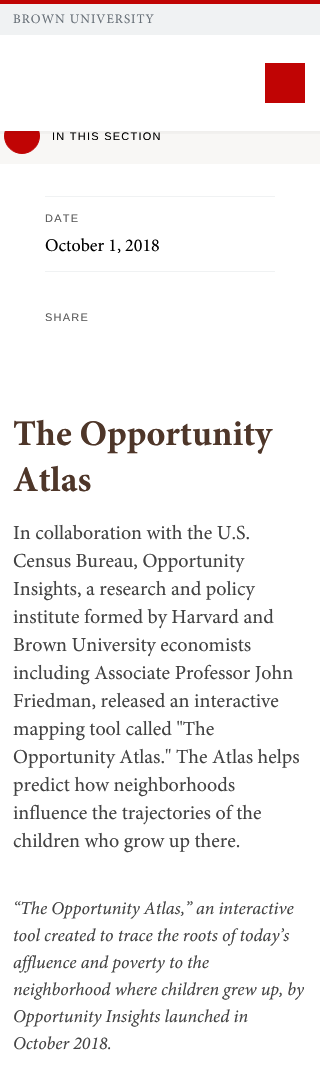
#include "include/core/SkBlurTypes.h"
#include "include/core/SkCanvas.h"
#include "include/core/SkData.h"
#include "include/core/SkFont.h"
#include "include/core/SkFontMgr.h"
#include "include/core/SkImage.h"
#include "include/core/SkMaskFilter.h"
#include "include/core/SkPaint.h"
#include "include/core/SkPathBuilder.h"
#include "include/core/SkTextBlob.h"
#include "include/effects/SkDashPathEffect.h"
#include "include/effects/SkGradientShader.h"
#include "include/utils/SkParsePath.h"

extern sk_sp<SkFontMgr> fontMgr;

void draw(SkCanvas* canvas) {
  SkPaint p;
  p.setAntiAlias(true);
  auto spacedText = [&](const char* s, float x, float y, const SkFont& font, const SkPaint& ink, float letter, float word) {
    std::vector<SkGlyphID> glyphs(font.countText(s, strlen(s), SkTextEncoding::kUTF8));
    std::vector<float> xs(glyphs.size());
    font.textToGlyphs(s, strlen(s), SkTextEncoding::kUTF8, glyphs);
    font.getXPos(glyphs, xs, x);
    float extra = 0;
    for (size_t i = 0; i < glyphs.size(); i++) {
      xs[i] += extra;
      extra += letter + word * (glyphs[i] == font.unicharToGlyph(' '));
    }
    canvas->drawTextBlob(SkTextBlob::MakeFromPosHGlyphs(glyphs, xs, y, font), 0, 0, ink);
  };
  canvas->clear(SK_ColorWHITE);
  p.setColor(SkColorSetRGB(248, 247, 245));
  canvas->drawRect(SkRect::MakeLTRB(0, 131, 320, 164), p);
  p.setColor(SkColorSetRGB(192, 4, 4));
  canvas->drawCircle(22, 136, 17.5f, p);
  p.setStyle(SkPaint::kStroke_Style);
  p.setStrokeWidth(1);
  canvas->drawCircle(22, 136, 17.5f, p);
  p.setStyle(SkPaint::kFill_Style);
  p.setColor(SK_ColorWHITE);
  canvas->drawRect(SkRect::MakeLTRB(4, 118, 40, 131), p);
  p.setColor(SkColorSetRGB(192, 4, 4));
  canvas->drawRect(SkRect::MakeLTRB(0, 0, 320, 4), p);
  p.setColor(SkColorSetRGB(240, 242, 243));
  canvas->drawRect(SkRect::MakeLTRB(0, 4, 320, 35), p);
  p.setColor(SkColorSetRGB(192, 4, 4));
  canvas->drawRect(SkRect::MakeLTRB(265, 63, 305, 103), p);
  {
    const SkColor colors[] = {SkColorSetARGB(8, 0, 0, 0), SkColorSetARGB(0, 0, 0, 0)};
    const float stops[] = {0, 1};
    const SkPoint ends[] = {{160, 131}, {160, 141}};
    p.setShader(SkGradientShader::MakeLinear(ends, colors, stops, 2, SkTileMode::kClamp));
    p.setAlpha(255);
  }
  canvas->drawRect(SkRect::MakeLTRB(0, 131, 320, 134), p);
  p.setShader(nullptr);
  p.setColor(SkColorSetRGB(240, 242, 243));
  canvas->drawRect(SkRect::MakeLTRB(45, 196, 275, 197), p);
  canvas->drawRect(SkRect::MakeLTRB(45, 271, 275, 272), p);
  SkFont font1(fontMgr->matchFamilyStyle("Minion", SkFontStyle::Normal()), 13);
  font1.setSubpixel(true);
  p.setColor(SkColorSetRGB(104, 112, 120));
  spacedText("BROWN UNIVERSITY", 13, 23, font1, p, 1, 0);
  SkFont font2(fontMgr->matchFamilyStyle("Liberation Sans", SkFontStyle::Normal()), 11);
  font2.setSubpixel(true);
  p.setColor(SK_ColorBLACK);
  spacedText("IN THIS SECTION", 52, 140, font2, p, 1.25f, 0);
  p.setColor(SkColorSetRGB(91, 91, 91));
  spacedText("DATE", 45, 222, font2, p, 1.25f, 0);
  SkFont font3(fontMgr->matchFamilyStyle("Minion", SkFontStyle::Normal()), 18);
  font3.setSubpixel(true);
  p.setColor(SK_ColorBLACK);
  canvas->drawString("October 1, 2018", 45, 251, font3, p);
  p.setColor(SkColorSetRGB(91, 91, 91));
  spacedText("SHARE", 45, 321, font2, p, 1.25f, 0);
  SkFont font4(fontMgr->matchFamilyStyle("Minion", SkFontStyle::Bold()), 36);
  font4.setSubpixel(true);
  p.setColor(SkColorSetRGB(78, 54, 41));
  canvas->drawString("The Opportunity", 13, 445, font4, p);
  canvas->drawString("Atlas", 13, 491, font4, p);
  SkFont font5(fontMgr->matchFamilyStyle("Minion", SkFontStyle::Normal()), 20);
  font5.setSubpixel(true);
  p.setColor(SkColorSetRGB(67, 67, 67));
  canvas->drawString("In collaboration with the U.S.", 13, 539, font5, p);
  canvas->drawString("Census Bureau, Opportunity", 13, 567, font5, p);
  canvas->drawString("Insights, a research and policy", 13, 595, font5, p);
  canvas->drawString("institute formed by Harvard and", 13, 623, font5, p);
  canvas->drawString("Brown University economists", 13, 651, font5, p);
  canvas->drawString("including Associate Professor John", 13, 679, font5, p);
  canvas->drawString("Friedman, released an interactive", 13, 707, font5, p);
  canvas->drawString("mapping tool called \"The", 13, 735, font5, p);
  canvas->drawString("Opportunity Atlas.\" The Atlas helps", 13, 763, font5, p);
  canvas->drawString("predict how neighborhoods", 13, 791, font5, p);
  canvas->drawString("influence the trajectories of the", 13, 819, font5, p);
  canvas->drawString("children who grow up there.", 13, 847, font5, p);
  SkFont font6(fontMgr->matchFamilyStyle("Minion", SkFontStyle::Italic()), 18);
  font6.setSubpixel(true);
  canvas->drawString("“The Opportunity Atlas,” an interactive", 13, 914, font6, p);
  canvas->drawString("tool created to trace the roots of today’s", 13, 941, font6, p);
  canvas->drawString("affluence and poverty to the", 13, 968, font6, p);
  canvas->drawString("neighborhood where children grew up, by", 13, 995, font6, p);
  canvas->drawString("Opportunity Insights launched in", 13, 1022, font6, p);
  canvas->drawString("October 2018.", 13, 1049, font6, p);
}
